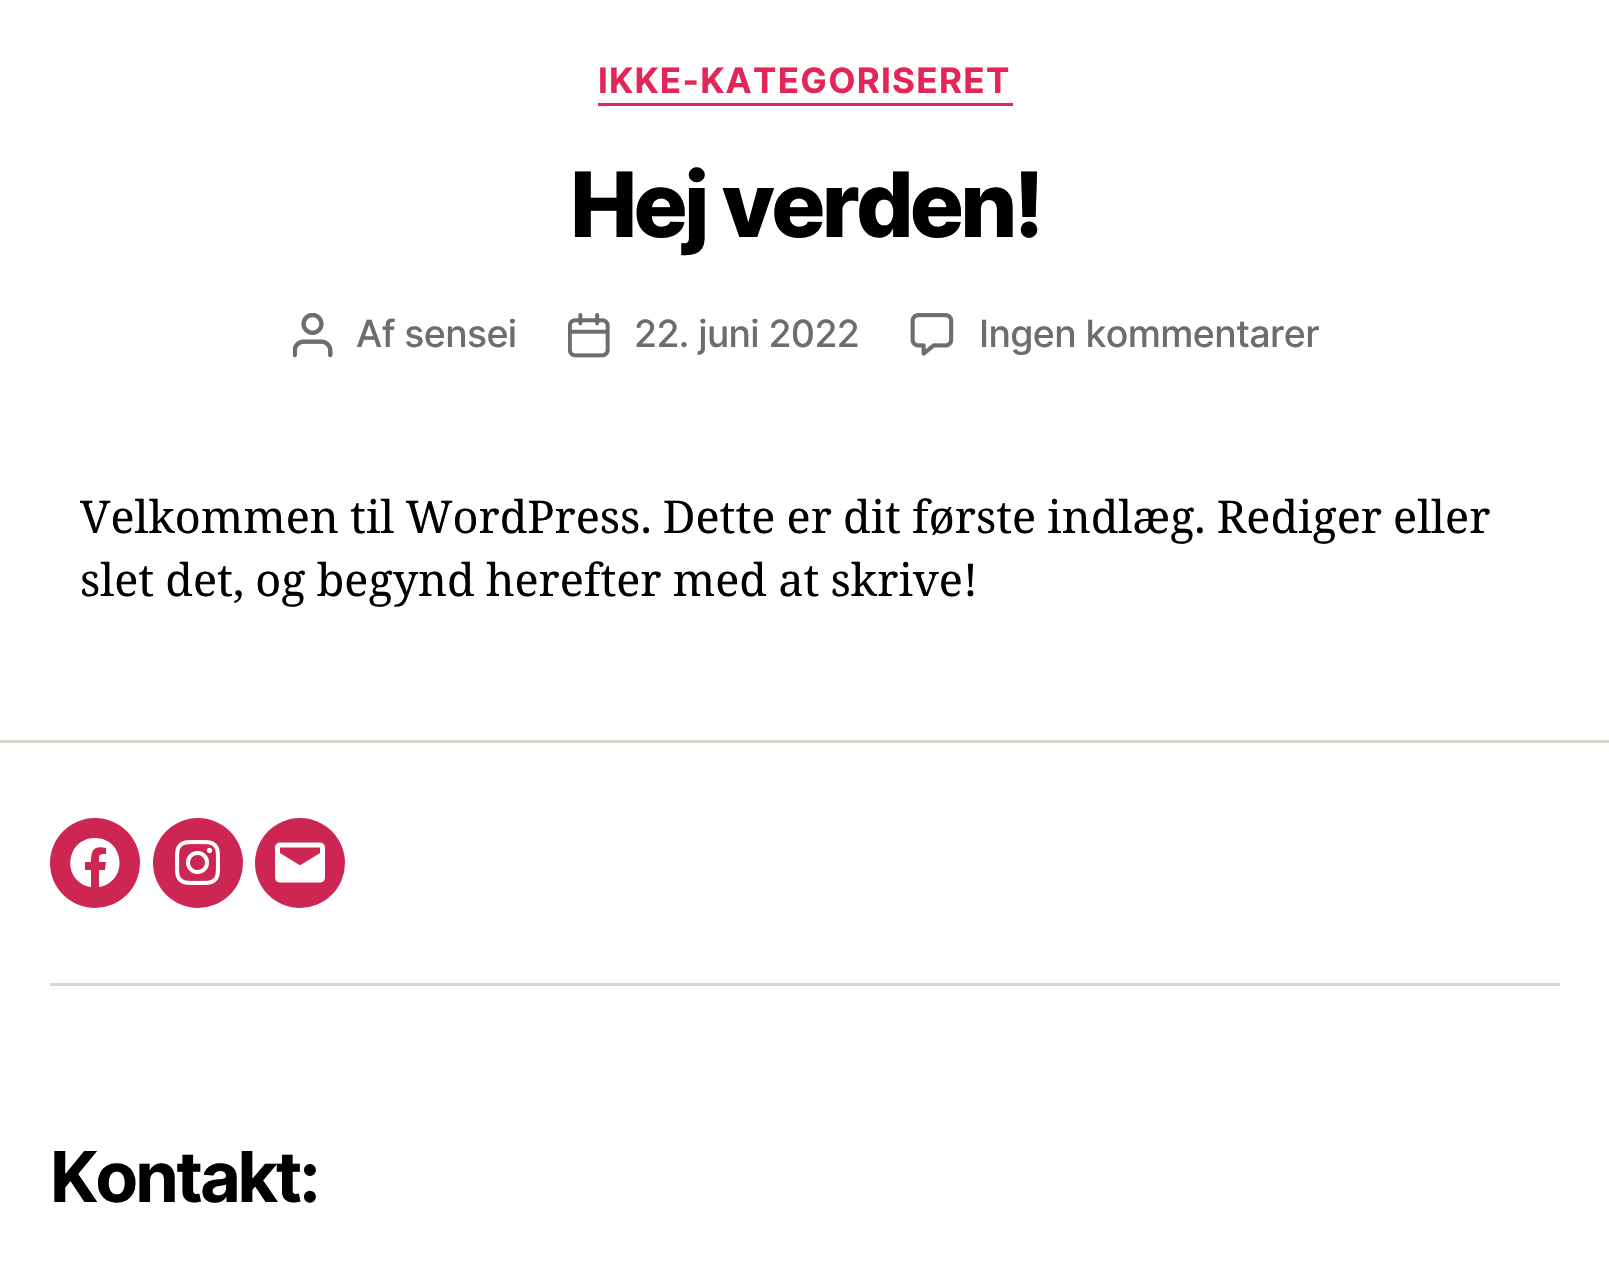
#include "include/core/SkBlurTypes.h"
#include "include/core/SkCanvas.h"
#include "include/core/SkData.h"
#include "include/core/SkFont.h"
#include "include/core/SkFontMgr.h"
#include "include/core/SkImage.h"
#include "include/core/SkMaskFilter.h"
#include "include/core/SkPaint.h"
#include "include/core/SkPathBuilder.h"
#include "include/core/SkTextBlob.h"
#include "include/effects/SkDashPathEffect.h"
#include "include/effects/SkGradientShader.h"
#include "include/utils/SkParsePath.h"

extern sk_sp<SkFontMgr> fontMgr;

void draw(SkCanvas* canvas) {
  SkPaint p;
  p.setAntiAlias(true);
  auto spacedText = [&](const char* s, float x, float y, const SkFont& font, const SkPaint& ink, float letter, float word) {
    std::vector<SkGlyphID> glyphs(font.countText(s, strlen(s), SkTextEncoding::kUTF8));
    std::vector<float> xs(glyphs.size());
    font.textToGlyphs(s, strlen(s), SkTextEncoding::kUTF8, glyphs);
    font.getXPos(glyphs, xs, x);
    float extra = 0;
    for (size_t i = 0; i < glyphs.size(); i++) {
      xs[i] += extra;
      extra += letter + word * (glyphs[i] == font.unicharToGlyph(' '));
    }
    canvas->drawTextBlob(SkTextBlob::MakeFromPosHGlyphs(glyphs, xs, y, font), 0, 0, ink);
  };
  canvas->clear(SK_ColorWHITE);
  p.setColor(SkColorSetRGB(226, 38, 88));
  canvas->drawRect(SkRect::MakeLTRB(598, 103, 1013, 106), p);
  canvas->drawImageRect(SkImages::DeferredFromEncodedData(SkData::MakeFromFileName("images/1.png")), SkRect::MakeLTRB(293, 313, 333, 358), SkSamplingOptions());
  canvas->drawImageRect(SkImages::DeferredFromEncodedData(SkData::MakeFromFileName("images/2.png")), SkRect::MakeLTRB(568, 313, 610, 358), SkSamplingOptions());
  canvas->drawImageRect(SkImages::DeferredFromEncodedData(SkData::MakeFromFileName("images/3.png")), SkRect::MakeLTRB(910, 313, 954, 356), SkSamplingOptions());
  p.setColor(SkColorSetRGB(220, 215, 202));
  canvas->drawRect(SkRect::MakeLTRB(0, 740, 1609, 743), p);
  canvas->drawRect(SkRect::MakeLTRB(50, 983, 1560, 986), p);
  p.setColor(SkColorSetRGB(205, 38, 83));
  canvas->drawCircle(95, 863, 45, p);
  p.setColor(SK_ColorWHITE);
  canvas->drawPath(SkPathBuilder().moveTo(95, 838).cubicTo(65, 838, 61, 882, 91, 887).lineTo(91, 870).lineTo(85, 870).lineTo(85, 862).lineTo(91, 862).cubicTo(91, 851, 93, 845, 106, 848).lineTo(106, 854).cubicTo(98, 854, 99, 855, 99, 862).lineTo(106, 862).lineTo(105, 870).lineTo(99, 870).lineTo(99, 887).cubicTo(129, 882, 125, 838, 95, 838).close().detach(), p);
  p.setColor(SkColorSetRGB(205, 38, 83));
  canvas->drawCircle(198, 863, 45, p);
  canvas->drawImageRect(SkImages::DeferredFromEncodedData(SkData::MakeFromFileName("images/4.png")), SkRect::MakeLTRB(175, 840, 220, 885), SkSamplingOptions());
  canvas->drawCircle(300, 863, 45, p);
  canvas->drawImageRect(SkImages::DeferredFromEncodedData(SkData::MakeFromFileName("images/5.png")), SkRect::MakeLTRB(275, 842, 325, 883), SkSamplingOptions());
  SkFont font1(fontMgr->matchFamilyStyle("Inter", SkFontStyle::Bold()), 35);
  font1.setSubpixel(true);
  p.setColor(SkColorSetRGB(226, 38, 88));
  spacedText("IKKE-KATEGORISERET", 598, 93, font1, p, 1.25f, 0);
  SkFont font2(fontMgr->matchFamilyStyle("Inter", SkFontStyle(800, SkFontStyle::kNormal_Width, SkFontStyle::kUpright_Slant)), 90);
  font2.setSubpixel(true);
  p.setColor(SK_ColorBLACK);
  spacedText("Hej verden!", 570, 237, font2, p, -3.75f, 0);
  SkFont font3(fontMgr->matchFamilyStyle("Inter", SkFontStyle(500, SkFontStyle::kNormal_Width, SkFontStyle::kUpright_Slant)), 37.5f);
  font3.setSubpixel(true);
  p.setColor(SkColorSetRGB(109, 109, 109));
  spacedText("Af sensei", 356, 347, font3, p, -0.6f, 0);
  spacedText("22. juni 2022", 634, 347, font3, p, -0.6f, 0);
  spacedText("Ingen kommentarer", 979, 347, font3, p, -0.6f, 0);
  SkFont font4(fontMgr->matchFamilyStyle("Noto Serif", SkFontStyle::Normal()), 45);
  font4.setSubpixel(true);
  p.setColor(SK_ColorBLACK);
  spacedText("Velkommen til WordPress. Dette er dit første indlæg. Rediger eller", 80, 533, font4, p, 0, -0.5f);
  spacedText("slet det, og begynd herefter med at skrive!", 80, 596, font4, p, 0, -0.5f);
  SkFont font5(fontMgr->matchFamilyStyle("Inter", SkFontStyle::Bold()), 70);
  font5.setSubpixel(true);
  spacedText("Kontakt:", 50, 1202, font5, p, -3, 0);
}
